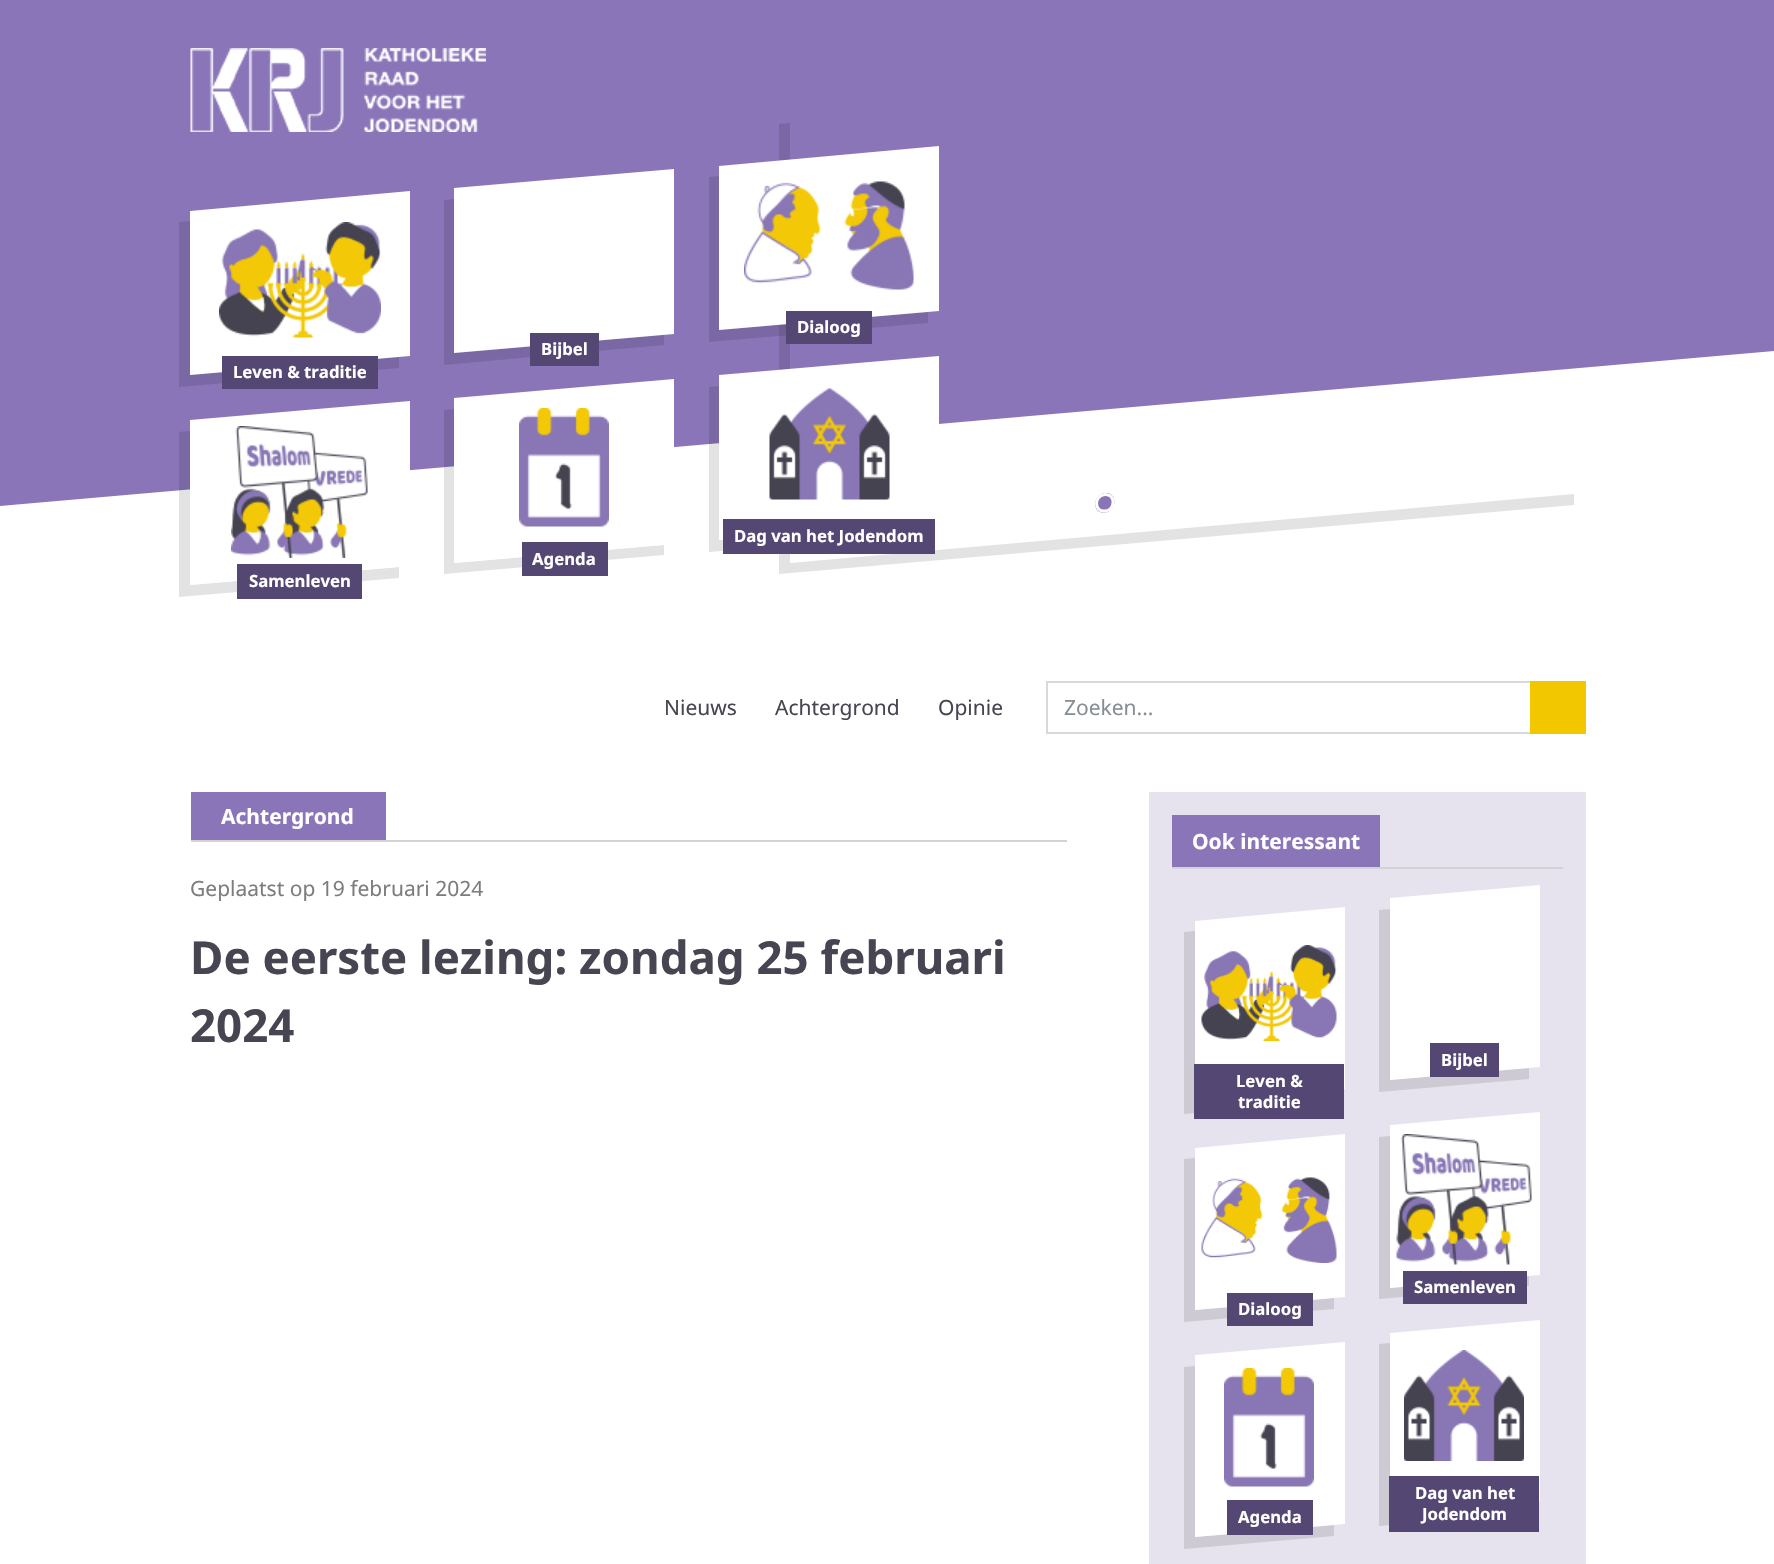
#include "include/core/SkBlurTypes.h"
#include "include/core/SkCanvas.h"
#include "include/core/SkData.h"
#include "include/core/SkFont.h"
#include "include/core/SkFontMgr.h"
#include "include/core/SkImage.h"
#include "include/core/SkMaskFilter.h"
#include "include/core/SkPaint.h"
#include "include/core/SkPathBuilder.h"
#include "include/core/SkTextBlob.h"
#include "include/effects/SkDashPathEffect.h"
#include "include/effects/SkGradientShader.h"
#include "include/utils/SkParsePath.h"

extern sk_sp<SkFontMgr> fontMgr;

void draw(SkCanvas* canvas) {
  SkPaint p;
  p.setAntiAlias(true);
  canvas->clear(SK_ColorWHITE);
  p.setColor(SkColorSetRGB(137, 117, 184));
  canvas->drawRect(SkRect::MakeLTRB(0, 0, 1774, 506), p);
  canvas->drawImageRect(SkImages::DeferredFromEncodedData(SkData::MakeFromFileName("images/1.png")), SkRect::MakeLTRB(190, 48, 486, 132), SkSamplingOptions());
  p.setColor(SK_ColorWHITE);
  canvas->drawPath(SkPathBuilder().moveTo(0, 506).lineTo(1774, 351).lineTo(1774, 951).lineTo(0, 1106).close().detach(), p);
  p.setColor(SkColorSetARGB(28, 0, 0, 0));
  canvas->drawPath(SkPathBuilder().moveTo(779, 124).lineTo(779, 574).lineTo(1574, 505).lineTo(1574, 494).lineTo(790, 563).lineTo(790, 123).close().detach(), p);
  canvas->drawPath(SkPathBuilder().moveTo(709, 177).lineTo(709, 342).lineTo(928, 323).lineTo(928, 312).lineTo(719, 330).lineTo(719, 176).close().detach(), p);
  p.setColor(SK_ColorWHITE);
  canvas->drawPath(SkPathBuilder().moveTo(719, 166).lineTo(939, 146).lineTo(939, 311).lineTo(719, 330).close().detach(), p);
  canvas->drawImageRect(SkImages::DeferredFromEncodedData(SkData::MakeFromFileName("images/2.png")), SkRect::MakeLTRB(744, 181, 914, 290), SkSamplingOptions());
  p.setColor(SkColorSetRGB(84, 71, 115));
  canvas->drawRect(SkRect::MakeLTRB(786, 311, 872, 344), p);
  p.setColor(SkColorSetRGB(122, 104, 164));
  canvas->drawPath(SkPathBuilder().moveTo(444, 200).lineTo(444, 365).lineTo(664, 345).lineTo(664, 335).lineTo(454, 353).lineTo(454, 199).close().detach(), p);
  p.setColor(SK_ColorWHITE);
  canvas->drawPath(SkPathBuilder().moveTo(454, 188).lineTo(674, 169).lineTo(674, 334).lineTo(454, 353).close().detach(), p);
  p.setColor(SkColorSetRGB(84, 71, 115));
  canvas->drawRect(SkRect::MakeLTRB(530, 333, 599, 366), p);
  p.setColor(SkColorSetRGB(122, 104, 164));
  canvas->drawPath(SkPathBuilder().moveTo(179, 222).lineTo(179, 387).lineTo(399, 368).lineTo(399, 357).lineTo(190, 375).lineTo(190, 221).close().detach(), p);
  p.setColor(SK_ColorWHITE);
  canvas->drawPath(SkPathBuilder().moveTo(190, 211).lineTo(410, 191).lineTo(410, 356).lineTo(190, 375).close().detach(), p);
  canvas->drawImageRect(SkImages::DeferredFromEncodedData(SkData::MakeFromFileName("images/3.png")), SkRect::MakeLTRB(219, 222, 381, 338), SkSamplingOptions());
  p.setColor(SkColorSetRGB(84, 71, 115));
  canvas->drawRect(SkRect::MakeLTRB(222, 356, 378, 389), p);
  p.setColor(SkColorSetARGB(28, 0, 0, 0));
  canvas->drawPath(SkPathBuilder().moveTo(709, 387).lineTo(709, 552).lineTo(928, 533).lineTo(928, 522).lineTo(719, 540).lineTo(719, 386).close().detach(), p);
  p.setColor(SK_ColorWHITE);
  canvas->drawPath(SkPathBuilder().moveTo(719, 375).lineTo(939, 356).lineTo(939, 521).lineTo(719, 540).close().detach(), p);
  canvas->drawImageRect(SkImages::DeferredFromEncodedData(SkData::MakeFromFileName("images/4.png")), SkRect::MakeLTRB(769, 388, 890, 500), SkSamplingOptions());
  p.setColor(SkColorSetRGB(84, 71, 115));
  canvas->drawRect(SkRect::MakeLTRB(723, 519, 935, 554), p);
  p.setColor(SkColorSetARGB(28, 0, 0, 0));
  canvas->drawPath(SkPathBuilder().moveTo(444, 410).lineTo(444, 574).lineTo(664, 555).lineTo(664, 545).lineTo(454, 563).lineTo(454, 409).close().detach(), p);
  p.setColor(SK_ColorWHITE);
  canvas->drawPath(SkPathBuilder().moveTo(454, 398).lineTo(674, 379).lineTo(674, 544).lineTo(454, 563).close().detach(), p);
  canvas->drawImageRect(SkImages::DeferredFromEncodedData(SkData::MakeFromFileName("images/5.png")), SkRect::MakeLTRB(519, 408, 609, 527), SkSamplingOptions());
  p.setColor(SkColorSetRGB(84, 71, 115));
  canvas->drawRect(SkRect::MakeLTRB(522, 542, 608, 576), p);
  p.setColor(SkColorSetARGB(28, 0, 0, 0));
  canvas->drawPath(SkPathBuilder().moveTo(179, 432).lineTo(179, 597).lineTo(399, 578).lineTo(399, 567).lineTo(190, 585).lineTo(190, 431).close().detach(), p);
  p.setColor(SK_ColorWHITE);
  canvas->drawPath(SkPathBuilder().moveTo(190, 420).lineTo(410, 401).lineTo(410, 566).lineTo(190, 585).close().detach(), p);
  canvas->drawImageRect(SkImages::DeferredFromEncodedData(SkData::MakeFromFileName("images/6.png")), SkRect::MakeLTRB(231, 426, 368, 558), SkSamplingOptions());
  p.setColor(SkColorSetRGB(84, 71, 115));
  canvas->drawRect(SkRect::MakeLTRB(237, 564, 362, 599), p);
  p.setColor(SkColorSetRGB(137, 117, 184));
  canvas->drawPath(SkPathBuilder().moveTo(1105, 493).cubicTo(1118, 492, 1117, 511.5f, 1105, 512.5f).cubicTo(1091.5f, 514, 1092.5f, 494.5f, 1105, 493).close().detach(), p);
  p.setStyle(SkPaint::kStroke_Style);
  p.setStrokeWidth(3);
  p.setColor(SK_ColorWHITE);
  canvas->drawPath(SkPathBuilder().moveTo(1105, 494.5f).cubicTo(1116, 494, 1115.5f, 510.5f, 1105, 511).cubicTo(1093.5f, 512, 1094, 495.5f, 1105, 494.5f).close().detach(), p);
  p.setStrokeWidth(2);
  p.setColor(SkColorSetRGB(217, 217, 217));
  canvas->drawRect(SkRect::MakeLTRB(1047, 682, 1531, 733), p);
  p.setStyle(SkPaint::kFill_Style);
  p.setColor(SkColorSetRGB(243, 199, 0));
  canvas->drawRect(SkRect::MakeLTRB(1530, 681, 1586, 734), p);
  p.setColor(SkColorSetRGB(211, 211, 211));
  canvas->drawRect(SkRect::MakeLTRB(191, 840, 1067, 842), p);
  p.setColor(SkColorSetRGB(137, 117, 184));
  canvas->drawRect(SkRect::MakeLTRB(191, 792, 386, 840), p);
  p.setColor(SkColorSetRGB(230, 227, 238));
  canvas->drawRect(SkRect::MakeLTRB(1149, 792, 1586, 1564), p);
  p.setColor(SkColorSetRGB(211, 211, 211));
  canvas->drawRect(SkRect::MakeLTRB(1172, 867, 1563, 869), p);
  p.setColor(SkColorSetRGB(137, 117, 184));
  canvas->drawRect(SkRect::MakeLTRB(1172, 815, 1380, 867), p);
  p.setColor(SkColorSetRGB(205, 202, 212));
  canvas->drawPath(SkPathBuilder().moveTo(1379, 910).lineTo(1379, 1092).lineTo(1529, 1079).lineTo(1529, 1068).lineTo(1390, 1080).lineTo(1390, 909).close().detach(), p);
  p.setColor(SK_ColorWHITE);
  canvas->drawPath(SkPathBuilder().moveTo(1390, 898).lineTo(1540, 885).lineTo(1540, 1067).lineTo(1390, 1080).close().detach(), p);
  p.setColor(SkColorSetRGB(84, 71, 115));
  canvas->drawRect(SkRect::MakeLTRB(1430, 1043, 1499, 1077), p);
  p.setColor(SkColorSetRGB(205, 202, 212));
  canvas->drawPath(SkPathBuilder().moveTo(1184, 932).lineTo(1184, 1114).lineTo(1334, 1101).lineTo(1334, 1090).lineTo(1195, 1103).lineTo(1195, 931).close().detach(), p);
  p.setColor(SK_ColorWHITE);
  canvas->drawPath(SkPathBuilder().moveTo(1195, 921).lineTo(1345, 907).lineTo(1345, 1089).lineTo(1195, 1103).close().detach(), p);
  canvas->drawImageRect(SkImages::DeferredFromEncodedData(SkData::MakeFromFileName("images/7.png")), SkRect::MakeLTRB(1201, 945, 1337, 1041), SkSamplingOptions());
  p.setColor(SkColorSetRGB(84, 71, 115));
  canvas->drawRect(SkRect::MakeLTRB(1194, 1064, 1344, 1119), p);
  p.setColor(SkColorSetRGB(205, 202, 212));
  canvas->drawPath(SkPathBuilder().moveTo(1379, 1137).lineTo(1379, 1299).lineTo(1529, 1286).lineTo(1529, 1276).lineTo(1390, 1288).lineTo(1390, 1136).close().detach(), p);
  p.setColor(SK_ColorWHITE);
  canvas->drawPath(SkPathBuilder().moveTo(1390, 1125).lineTo(1540, 1112).lineTo(1540, 1275).lineTo(1390, 1288).close().detach(), p);
  canvas->drawImageRect(SkImages::DeferredFromEncodedData(SkData::MakeFromFileName("images/8.png")), SkRect::MakeLTRB(1396, 1134, 1532, 1265), SkSamplingOptions());
  p.setColor(SkColorSetRGB(84, 71, 115));
  canvas->drawRect(SkRect::MakeLTRB(1403, 1271, 1527, 1304), p);
  p.setColor(SkColorSetRGB(205, 202, 212));
  canvas->drawPath(SkPathBuilder().moveTo(1184, 1159).lineTo(1184, 1322).lineTo(1334, 1309).lineTo(1334, 1298).lineTo(1195, 1310).lineTo(1195, 1158).close().detach(), p);
  p.setColor(SK_ColorWHITE);
  canvas->drawPath(SkPathBuilder().moveTo(1195, 1148).lineTo(1345, 1134).lineTo(1345, 1297).lineTo(1195, 1310).close().detach(), p);
  canvas->drawImageRect(SkImages::DeferredFromEncodedData(SkData::MakeFromFileName("images/9.png")), SkRect::MakeLTRB(1201, 1177, 1337, 1263), SkSamplingOptions());
  p.setColor(SkColorSetRGB(84, 71, 115));
  canvas->drawRect(SkRect::MakeLTRB(1227, 1293, 1313, 1326), p);
  p.setColor(SkColorSetRGB(205, 202, 212));
  canvas->drawPath(SkPathBuilder().moveTo(1184, 1367).lineTo(1184, 1549).lineTo(1334, 1536).lineTo(1334, 1525).lineTo(1195, 1537).lineTo(1195, 1366).close().detach(), p);
  p.setColor(SK_ColorWHITE);
  canvas->drawPath(SkPathBuilder().moveTo(1195, 1355).lineTo(1345, 1342).lineTo(1345, 1524).lineTo(1195, 1537).close().detach(), p);
  canvas->drawImageRect(SkImages::DeferredFromEncodedData(SkData::MakeFromFileName("images/10.png")), SkRect::MakeLTRB(1224, 1368, 1314, 1487), SkSamplingOptions());
  p.setColor(SkColorSetRGB(84, 71, 115));
  canvas->drawRect(SkRect::MakeLTRB(1227, 1500, 1313, 1535), p);
  p.setColor(SkColorSetRGB(205, 202, 212));
  canvas->drawPath(SkPathBuilder().moveTo(1379, 1344).lineTo(1379, 1526).lineTo(1529, 1513).lineTo(1529, 1503).lineTo(1390, 1515).lineTo(1390, 1343).close().detach(), p);
  p.setColor(SK_ColorWHITE);
  canvas->drawPath(SkPathBuilder().moveTo(1390, 1333).lineTo(1540, 1320).lineTo(1540, 1502).lineTo(1390, 1515).close().detach(), p);
  canvas->drawImageRect(SkImages::DeferredFromEncodedData(SkData::MakeFromFileName("images/11.png")), SkRect::MakeLTRB(1404, 1350, 1524, 1461), SkSamplingOptions());
  p.setColor(SkColorSetRGB(84, 71, 115));
  canvas->drawRect(SkRect::MakeLTRB(1389, 1476, 1539, 1532), p);
  SkFont font1(fontMgr->matchFamilyStyle("Noto Sans", SkFontStyle::Bold()), 16.75f);
  font1.setSubpixel(true);
  p.setColor(SK_ColorWHITE);
  canvas->drawString("Dialoog", 797, 333, font1, p);
  canvas->drawString("Bijbel", 541, 355, font1, p);
  canvas->drawString("Leven & traditie", 233, 378, font1, p);
  canvas->drawString("Dag van het Jodendom", 734, 542, font1, p);
  canvas->drawString("Agenda", 532, 565, font1, p);
  canvas->drawString("Samenleven", 249, 587, font1, p);
  SkFont font2(fontMgr->matchFamilyStyle("Noto Sans", SkFontStyle::Normal()), 21);
  font2.setSubpixel(true);
  p.setColor(SkColorSetRGB(72, 69, 82));
  canvas->drawString("Nieuws", 664, 715, font2, p);
  canvas->drawString("Achtergrond", 775, 715, font2, p);
  canvas->drawString("Opinie", 938, 715, font2, p);
  p.setColor(SkColorSetRGB(134, 142, 150));
  canvas->drawString("Zoeken...", 1064, 715, font2, p);
  SkFont font3(fontMgr->matchFamilyStyle("Noto Sans", SkFontStyle::Bold()), 21);
  font3.setSubpixel(true);
  p.setColor(SK_ColorWHITE);
  canvas->drawString("Achtergrond", 221, 824, font3, p);
  p.setColor(SkColorSetRGB(125, 125, 125));
  canvas->drawString("Geplaatst op 19 februari 2024", 190, 896, font2, p);
  SkFont font4(fontMgr->matchFamilyStyle("Noto Sans", SkFontStyle::Bold()), 45.6f);
  font4.setSubpixel(true);
  p.setColor(SkColorSetRGB(72, 69, 82));
  canvas->drawString("De eerste lezing: zondag 25 februari", 190, 974, font4, p);
  canvas->drawString("2024", 190, 1042, font4, p);
  p.setColor(SK_ColorWHITE);
  canvas->drawString("Ook interessant", 1192, 849, font3, p);
  canvas->drawString("Bijbel", 1441, 1066, font1, p);
  canvas->drawString("Leven &", 1236, 1087, font1, p);
  canvas->drawString("traditie", 1238, 1108, font1, p);
  canvas->drawString("Samenleven", 1414, 1293, font1, p);
  canvas->drawString("Dialoog", 1238, 1315, font1, p);
  canvas->drawString("Agenda", 1238, 1523, font1, p);
  canvas->drawString("Dag van het", 1415, 1499, font1, p);
  canvas->drawString("Jodendom", 1422, 1520, font1, p);
}
